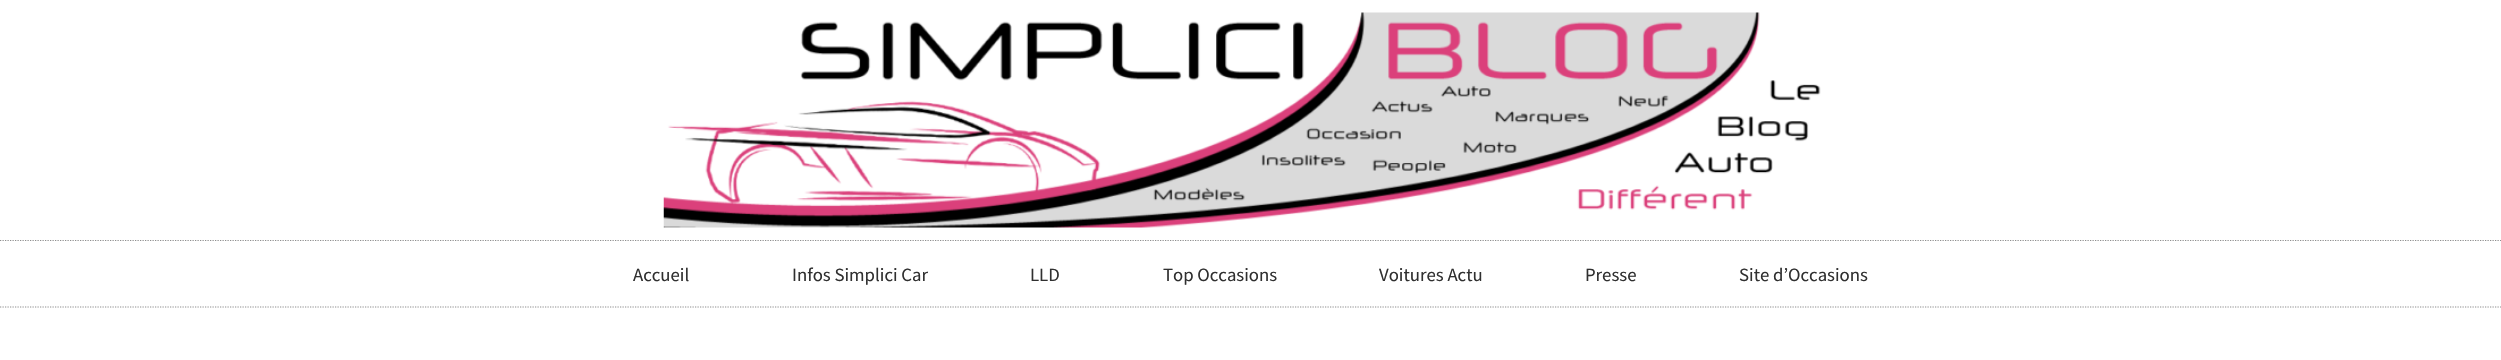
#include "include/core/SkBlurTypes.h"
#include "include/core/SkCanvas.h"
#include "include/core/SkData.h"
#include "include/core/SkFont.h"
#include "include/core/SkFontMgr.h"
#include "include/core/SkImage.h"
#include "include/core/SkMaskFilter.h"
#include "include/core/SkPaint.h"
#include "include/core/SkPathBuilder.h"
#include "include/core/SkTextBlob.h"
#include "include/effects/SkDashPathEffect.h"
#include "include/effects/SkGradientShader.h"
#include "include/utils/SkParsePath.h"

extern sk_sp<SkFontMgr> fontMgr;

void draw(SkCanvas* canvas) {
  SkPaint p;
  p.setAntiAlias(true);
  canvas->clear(SK_ColorWHITE);
  canvas->drawImageRect(SkImages::DeferredFromEncodedData(SkData::MakeFromFileName("images/1.png")), SkRect::MakeLTRB(663, 12, 1821, 228), SkSamplingOptions());
  p.setStyle(SkPaint::kStroke_Style);
  p.setStrokeWidth(1.2f);
  p.setColor(SkColorSetRGB(142, 142, 142));
  p.setPathEffect(SkDashPathEffect::Make({{1.25f, 1.25f}}, 0));
  canvas->drawPath(SkPathBuilder().moveTo(0, 240.5f).lineTo(2501, 240.5f).detach(), p);
  p.setPathEffect(nullptr);
  p.setPathEffect(SkDashPathEffect::Make({{1.25f, 1.25f}}, 0));
  canvas->drawPath(SkPathBuilder().moveTo(0, 307).lineTo(2501, 307).detach(), p);
  p.setPathEffect(nullptr);
  SkFont font1(fontMgr->matchFamilyStyle("Source Sans Pro", SkFontStyle::Normal()), 18.75f);
  font1.setSubpixel(true);
  p.setStyle(SkPaint::kFill_Style);
  p.setColor(SkColorSetRGB(48, 48, 48));
  canvas->drawString("Accueil", 633, 281, font1, p);
  canvas->drawString("Infos Simplici Car", 792, 281, font1, p);
  canvas->drawString("LLD", 1030, 281, font1, p);
  canvas->drawString("Top Occasions", 1163, 281, font1, p);
  canvas->drawString("Voitures Actu", 1379, 281, font1, p);
  canvas->drawString("Presse", 1585, 281, font1, p);
  canvas->drawString("Site d’Occasions", 1739, 281, font1, p);
}
